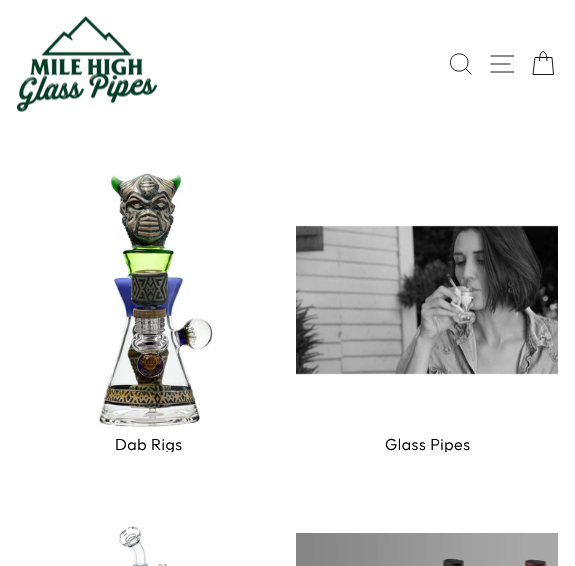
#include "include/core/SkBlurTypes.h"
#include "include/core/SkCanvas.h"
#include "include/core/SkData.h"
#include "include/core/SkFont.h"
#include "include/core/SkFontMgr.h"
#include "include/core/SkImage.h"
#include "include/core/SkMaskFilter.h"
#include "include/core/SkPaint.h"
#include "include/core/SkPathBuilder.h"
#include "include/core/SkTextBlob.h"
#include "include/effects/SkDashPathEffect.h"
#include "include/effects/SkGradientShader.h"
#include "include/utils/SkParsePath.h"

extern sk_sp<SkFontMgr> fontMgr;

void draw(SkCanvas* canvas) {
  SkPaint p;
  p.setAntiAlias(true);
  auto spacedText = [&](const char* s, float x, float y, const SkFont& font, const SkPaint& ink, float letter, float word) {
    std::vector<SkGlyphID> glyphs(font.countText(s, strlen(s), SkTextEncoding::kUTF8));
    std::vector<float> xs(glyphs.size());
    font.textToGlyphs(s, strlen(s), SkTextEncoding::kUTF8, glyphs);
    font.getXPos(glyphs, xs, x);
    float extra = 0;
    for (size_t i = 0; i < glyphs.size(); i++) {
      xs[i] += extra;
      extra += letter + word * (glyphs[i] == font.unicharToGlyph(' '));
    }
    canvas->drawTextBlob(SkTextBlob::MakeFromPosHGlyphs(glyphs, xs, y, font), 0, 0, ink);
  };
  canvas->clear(SK_ColorWHITE);
  canvas->drawImageRect(SkImages::DeferredFromEncodedData(SkData::MakeFromFileName("images/1.png")), SkRect::MakeLTRB(17, 16, 157, 112), SkSamplingOptions());
  p.setStyle(SkPaint::kStroke_Style);
  p.setStrokeWidth(0.9f);
  p.setColor(SK_ColorBLACK);
  canvas->drawPath(SkPathBuilder().moveTo(468, 62.5f).cubicTo(468, 74, 450.5f, 74, 450.5f, 62.5f).cubicTo(450.5f, 51, 468, 51, 468, 62.5f).close().moveTo(471.5f, 74.5f).lineTo(465.5f, 68.5f).detach(), p);
  canvas->drawPath(SkPathBuilder().moveTo(490.5f, 56).lineTo(514, 56).moveTo(490.5f, 64).lineTo(510.5f, 64).moveTo(490.5f, 72).lineTo(514, 72).moveTo(539.5f, 61).cubicTo(539.5f, 48.5f, 547, 48.5f, 547, 61).detach(), p);
  canvas->drawPath(SkPathBuilder().moveTo(535, 57.5f).lineTo(552, 57.5f).lineTo(553.5f, 74.5f).lineTo(533, 74.5f).close().detach(), p);
  canvas->drawImageRect(SkImages::DeferredFromEncodedData(SkData::MakeFromFileName("images/2.png")), SkRect::MakeLTRB(98, 173, 213, 428), SkSamplingOptions());
  canvas->drawImageRect(SkImages::DeferredFromEncodedData(SkData::MakeFromFileName("images/3.png")), SkRect::MakeLTRB(296, 225, 558, 375), SkSamplingOptions());
  canvas->drawImageRect(SkImages::DeferredFromEncodedData(SkData::MakeFromFileName("images/4.png")), SkRect::MakeLTRB(119, 526, 167, 566), SkSamplingOptions());
  canvas->drawImageRect(SkImages::DeferredFromEncodedData(SkData::MakeFromFileName("images/5.png")), SkRect::MakeLTRB(296, 533, 558, 566), SkSamplingOptions());
  canvas->save();
  canvas->clipRect(SkRect::MakeLTRB(17, 169, 279, 452));
  SkFont font1(fontMgr->matchFamilyStyle("Outfit", SkFontStyle(300, SkFontStyle::kNormal_Width, SkFontStyle::kUpright_Slant)), 16);
  font1.setSubpixel(true);
  p.setStyle(SkPaint::kFill_Style);
  spacedText("Dab Rigs", 115, 450, font1, p, 0.5f, 0);
  canvas->restore();
  canvas->save();
  canvas->clipRect(SkRect::MakeLTRB(296, 169, 558, 452));
  spacedText("Glass Pipes", 385, 450, font1, p, 0.5f, 0);
  canvas->restore();
}
